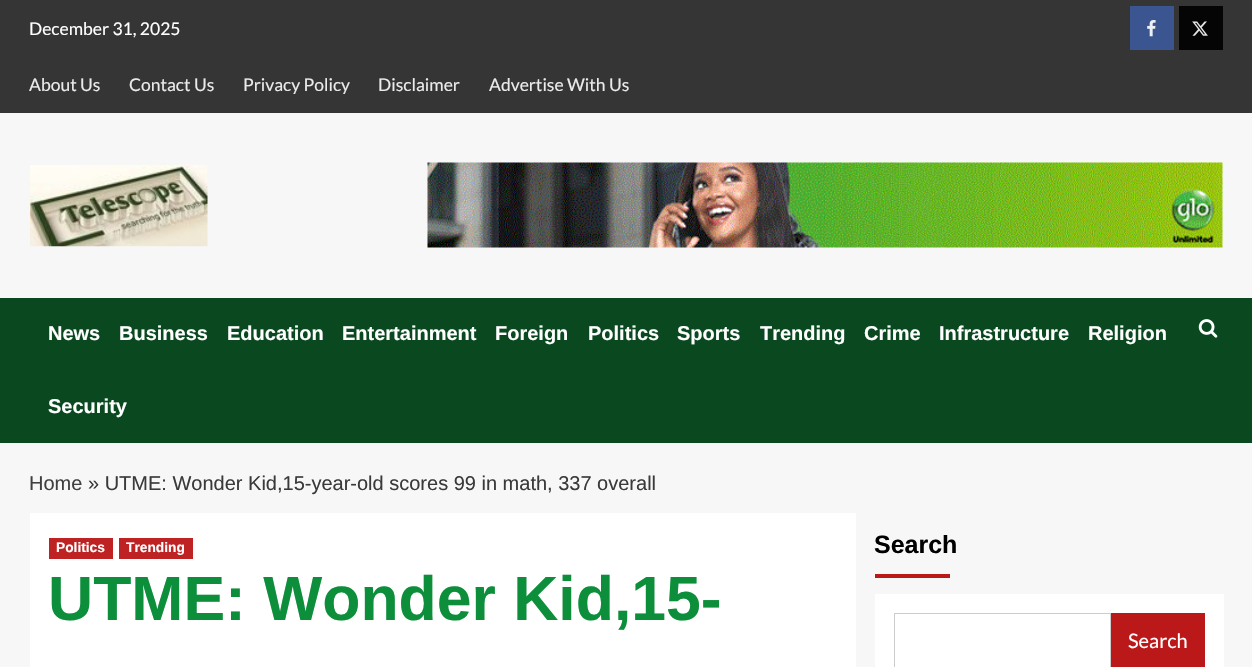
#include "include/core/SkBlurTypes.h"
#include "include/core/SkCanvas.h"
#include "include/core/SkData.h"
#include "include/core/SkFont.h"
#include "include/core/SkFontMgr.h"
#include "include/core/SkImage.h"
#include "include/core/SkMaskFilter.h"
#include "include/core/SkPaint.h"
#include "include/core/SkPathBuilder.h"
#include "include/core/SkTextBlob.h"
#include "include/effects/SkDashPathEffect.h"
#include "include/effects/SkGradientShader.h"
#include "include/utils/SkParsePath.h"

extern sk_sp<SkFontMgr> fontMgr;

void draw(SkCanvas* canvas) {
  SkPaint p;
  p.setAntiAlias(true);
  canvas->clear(SkColorSetRGB(247, 247, 247));
  p.setColor(SkColorSetRGB(53, 53, 53));
  canvas->drawRect(SkRect::MakeLTRB(0, 0, 1252, 113), p);
  p.setColor(SkColorSetRGB(58, 85, 143));
  canvas->drawRect(SkRect::MakeLTRB(1130, 6, 1174, 50), p);
  canvas->drawImageRect(SkImages::DeferredFromEncodedData(SkData::MakeFromFileName("images/1.png")), SkRect::MakeLTRB(1147, 20, 1156, 37), SkSamplingOptions());
  p.setColor(SkColorSetRGB(5, 5, 5));
  canvas->drawRect(SkRect::MakeLTRB(1179, 6, 1223, 50), p);
  canvas->drawImageRect(SkImages::DeferredFromEncodedData(SkData::MakeFromFileName("images/2.png")), SkRect::MakeLTRB(1192, 21, 1208, 36), SkSamplingOptions());
  canvas->drawImageRect(SkImages::DeferredFromEncodedData(SkData::MakeFromFileName("images/3.png")), SkRect::MakeLTRB(30, 165, 208, 247), SkSamplingOptions());
  canvas->drawImageRect(SkImages::DeferredFromEncodedData(SkData::MakeFromFileName("images/4.png")), SkRect::MakeLTRB(427, 162, 1223, 248), SkSamplingOptions());
  p.setColor(SkColorSetRGB(10, 72, 32));
  canvas->drawRect(SkRect::MakeLTRB(0, 298, 1252, 443), p);
  canvas->drawImageRect(SkImages::DeferredFromEncodedData(SkData::MakeFromFileName("images/5.png")), SkRect::MakeLTRB(1198, 319, 1218, 338), SkSamplingOptions());
  p.setColor(SK_ColorWHITE);
  canvas->drawRect(SkRect::MakeLTRB(30, 513, 856, 667), p);
  p.setColor(SkColorSetRGB(190, 34, 34));
  canvas->drawRect(SkRect::MakeLTRB(49, 538, 113, 559), p);
  canvas->drawRect(SkRect::MakeLTRB(119, 538, 193, 559), p);
  p.setColor(SkColorSetRGB(187, 25, 25));
  canvas->drawRect(SkRect::MakeLTRB(875, 574, 950, 578), p);
  p.setColor(SK_ColorWHITE);
  canvas->drawRect(SkRect::MakeLTRB(875, 594, 1224, 667), p);
  p.setStyle(SkPaint::kStroke_Style);
  p.setStrokeWidth(1);
  p.setColor(SkColorSetRGB(204, 204, 204));
  canvas->drawRect(SkRect::MakeLTRB(894.5f, 613.5f, 1110.5f, 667.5f), p);
  p.setStyle(SkPaint::kFill_Style);
  p.setColor(SkColorSetRGB(187, 25, 25));
  canvas->drawRect(SkRect::MakeLTRB(1111, 613, 1205, 667), p);
  SkFont font1(fontMgr->matchFamilyStyle("Lato", SkFontStyle::Normal()), 17.5f);
  font1.setSubpixel(true);
  p.setColor(SK_ColorWHITE);
  canvas->drawString("December 31, 2025", 29, 35, font1, p);
  p.setColor(SkColorSetRGB(235, 235, 235));
  canvas->drawString("About Us", 29, 91, font1, p);
  canvas->drawString("Contact Us", 129, 91, font1, p);
  canvas->drawString("Privacy Policy", 243, 91, font1, p);
  canvas->drawString("Disclaimer", 378, 91, font1, p);
  canvas->drawString("Advertise With Us", 489, 91, font1, p);
  SkFont font2(fontMgr->matchFamilyStyle("Liberation Sans", SkFontStyle::Bold()), 20);
  font2.setSubpixel(true);
  p.setColor(SK_ColorWHITE);
  canvas->drawString("News", 48, 340, font2, p);
  canvas->drawString("Business", 119, 340, font2, p);
  canvas->drawString("Education", 227, 340, font2, p);
  canvas->drawString("Entertainment", 342, 340, font2, p);
  canvas->drawString("Foreign", 495, 340, font2, p);
  canvas->drawString("Politics", 588, 340, font2, p);
  canvas->drawString("Sports", 677, 340, font2, p);
  canvas->drawString("Trending", 760, 340, font2, p);
  canvas->drawString("Crime", 864, 340, font2, p);
  canvas->drawString("Infrastructure", 939, 340, font2, p);
  canvas->drawString("Religion", 1088, 340, font2, p);
  canvas->drawString("Security", 48, 413, font2, p);
  SkFont font3(fontMgr->matchFamilyStyle("Liberation Sans", SkFontStyle::Normal()), 20);
  font3.setSubpixel(true);
  p.setColor(SkColorSetRGB(64, 64, 64));
  canvas->drawString("Home", 29, 490, font3, p);
  p.setColor(SkColorSetRGB(58, 58, 58));
  canvas->drawString("» UTME: Wonder Kid,15-year-old scores 99 in math, 337 overall", 88, 490, font3, p);
  SkFont font4(fontMgr->matchFamilyStyle("Liberation Sans", SkFontStyle::Bold()), 13.75f);
  font4.setSubpixel(true);
  p.setColor(SK_ColorWHITE);
  canvas->drawString("Politics", 56, 552, font4, p);
  canvas->drawString("Trending", 126, 552, font4, p);
  SkFont font5(fontMgr->matchFamilyStyle("Liberation Sans", SkFontStyle::Bold()), 62.5f);
  font5.setSubpixel(true);
  p.setColor(SkColorSetRGB(13, 142, 58));
  canvas->drawString("UTME: Wonder Kid,15-", 48, 620, font5, p);
  SkFont font6(fontMgr->matchFamilyStyle("Liberation Sans", SkFontStyle::Bold()), 25);
  font6.setSubpixel(true);
  p.setColor(SK_ColorBLACK);
  canvas->drawString("Search", 874, 553, font6, p);
  SkFont font7(fontMgr->matchFamilyStyle("Lato", SkFontStyle::Normal()), 20);
  font7.setSubpixel(true);
  p.setColor(SK_ColorWHITE);
  canvas->drawString("Search", 1128, 648, font7, p);
}
